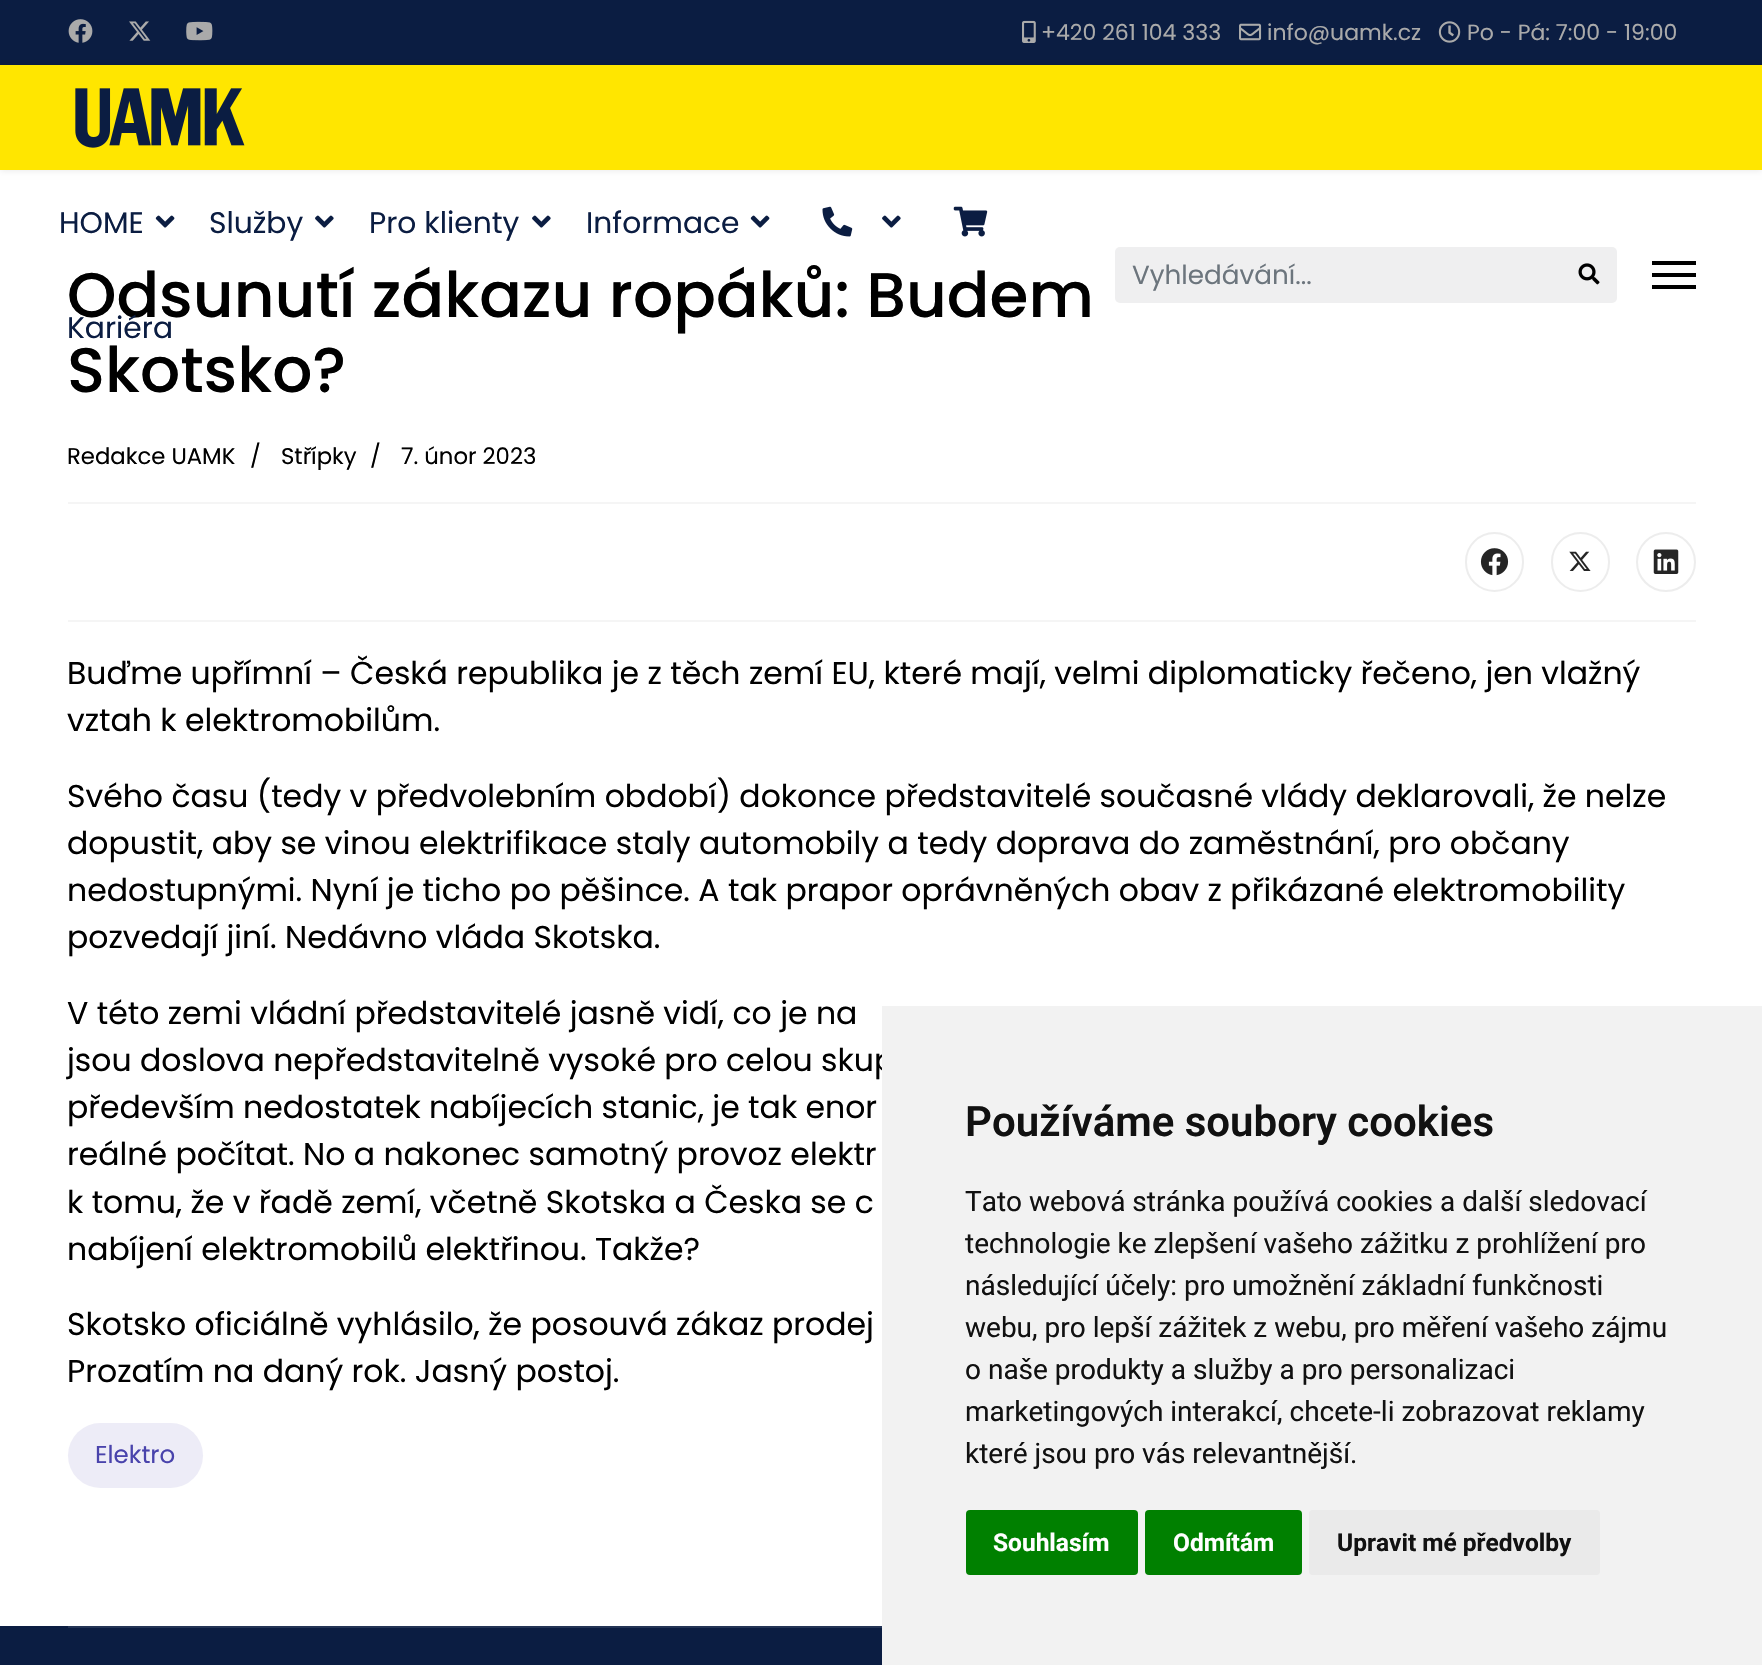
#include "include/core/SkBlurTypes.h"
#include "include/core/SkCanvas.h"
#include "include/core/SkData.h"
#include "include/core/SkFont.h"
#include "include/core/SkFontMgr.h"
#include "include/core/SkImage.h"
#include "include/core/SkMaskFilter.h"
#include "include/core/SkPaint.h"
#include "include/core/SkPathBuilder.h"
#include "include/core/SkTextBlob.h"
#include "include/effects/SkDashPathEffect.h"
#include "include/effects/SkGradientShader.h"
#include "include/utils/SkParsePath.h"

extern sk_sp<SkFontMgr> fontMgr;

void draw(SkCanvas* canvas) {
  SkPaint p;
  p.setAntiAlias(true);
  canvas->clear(SK_ColorWHITE);
  p.setColor(SkColorSetRGB(11, 29, 66));
  canvas->drawRect(SkRect::MakeLTRB(0, 0, 1762, 65), p);
  canvas->drawImageRect(SkImages::DeferredFromEncodedData(SkData::MakeFromFileName("images/1.png")), SkRect::MakeLTRB(68, 19, 93, 43), SkSamplingOptions());
  canvas->drawImageRect(SkImages::DeferredFromEncodedData(SkData::MakeFromFileName("images/2.png")), SkRect::MakeLTRB(129, 21, 151, 41), SkSamplingOptions());
  canvas->drawImageRect(SkImages::DeferredFromEncodedData(SkData::MakeFromFileName("images/3.png")), SkRect::MakeLTRB(186, 21, 213, 41), SkSamplingOptions());
  canvas->drawImageRect(SkImages::DeferredFromEncodedData(SkData::MakeFromFileName("images/4.png")), SkRect::MakeLTRB(1022, 20, 1036, 43), SkSamplingOptions());
  canvas->drawImageRect(SkImages::DeferredFromEncodedData(SkData::MakeFromFileName("images/5.png")), SkRect::MakeLTRB(1239, 23, 1262, 41), SkSamplingOptions());
  canvas->drawImageRect(SkImages::DeferredFromEncodedData(SkData::MakeFromFileName("images/6.png")), SkRect::MakeLTRB(1438, 21, 1461, 43), SkSamplingOptions());
  p.setColor(SkColorSetARGB(26, 0, 0, 0));
  p.setMaskFilter(SkMaskFilter::MakeBlur(kNormal_SkBlurStyle, 3.5f));
  canvas->drawRect(SkRect::MakeLTRB(0, 65, 1762, 170), p);
  p.setMaskFilter(nullptr);
  p.setColor(SkColorSetRGB(255, 230, 0));
  canvas->drawRect(SkRect::MakeLTRB(0, 65, 1762, 170), p);
  canvas->drawImageRect(SkImages::DeferredFromEncodedData(SkData::MakeFromFileName("images/7.png")), SkRect::MakeLTRB(75, 88, 245, 148), SkSamplingOptions());
  canvas->drawImageRect(SkImages::DeferredFromEncodedData(SkData::MakeFromFileName("images/8.png")), SkRect::MakeLTRB(155, 215, 175, 228), SkSamplingOptions());
  canvas->drawImageRect(SkImages::DeferredFromEncodedData(SkData::MakeFromFileName("images/9.png")), SkRect::MakeLTRB(315, 215, 334, 228), SkSamplingOptions());
  canvas->drawImageRect(SkImages::DeferredFromEncodedData(SkData::MakeFromFileName("images/9.png")), SkRect::MakeLTRB(532, 215, 551, 228), SkSamplingOptions());
  canvas->drawImageRect(SkImages::DeferredFromEncodedData(SkData::MakeFromFileName("images/8.png")), SkRect::MakeLTRB(750, 215, 770, 228), SkSamplingOptions());
  canvas->drawImageRect(SkImages::DeferredFromEncodedData(SkData::MakeFromFileName("images/10.png")), SkRect::MakeLTRB(822, 206, 853, 237), SkSamplingOptions());
  canvas->drawImageRect(SkImages::DeferredFromEncodedData(SkData::MakeFromFileName("images/9.png")), SkRect::MakeLTRB(882, 215, 901, 228), SkSamplingOptions());
  canvas->drawImageRect(SkImages::DeferredFromEncodedData(SkData::MakeFromFileName("images/11.png")), SkRect::MakeLTRB(953, 206, 988, 237), SkSamplingOptions());
  p.setColor(SkColorSetRGB(239, 239, 240));
  canvas->drawRoundRect(SkRect::MakeLTRB(1115, 247, 1617, 303), 5, 5, p);
  canvas->drawImageRect(SkImages::DeferredFromEncodedData(SkData::MakeFromFileName("images/12.png")), SkRect::MakeLTRB(1578, 263, 1600, 285), SkSamplingOptions());
  p.setColor(SK_ColorBLACK);
  canvas->drawRect(SkRect::MakeLTRB(1652, 261, 1696, 265), p);
  canvas->drawRect(SkRect::MakeLTRB(1652, 273, 1696, 277), p);
  canvas->drawRect(SkRect::MakeLTRB(1652, 285, 1696, 289), p);
  p.setColor(SkColorSetRGB(245, 245, 245));
  canvas->drawRect(SkRect::MakeLTRB(68, 502, 1696, 504), p);
  canvas->drawRect(SkRect::MakeLTRB(68, 620, 1696, 622), p);
  p.setStyle(SkPaint::kStroke_Style);
  p.setStrokeWidth(2);
  p.setColor(SkColorSetRGB(237, 237, 237));
  canvas->drawRoundRect(SkRect::MakeLTRB(1466, 533, 1523, 591), 28.5f, 28.5f, p);
  canvas->drawImageRect(SkImages::DeferredFromEncodedData(SkData::MakeFromFileName("images/13.png")), SkRect::MakeLTRB(1480, 548, 1509, 576), SkSamplingOptions());
  canvas->drawRoundRect(SkRect::MakeLTRB(1552, 533, 1609, 591), 28.5f, 28.5f, p);
  canvas->drawImageRect(SkImages::DeferredFromEncodedData(SkData::MakeFromFileName("images/14.png")), SkRect::MakeLTRB(1569, 551, 1591, 571), SkSamplingOptions());
  canvas->drawCircle(1666, 562, 29, p);
  canvas->drawImageRect(SkImages::DeferredFromEncodedData(SkData::MakeFromFileName("images/15.png")), SkRect::MakeLTRB(1653, 549, 1679, 574), SkSamplingOptions());
  p.setStyle(SkPaint::kFill_Style);
  p.setColor(SkColorSetRGB(237, 236, 247));
  canvas->drawRoundRect(SkRect::MakeLTRB(68, 1423, 203, 1488), 32.5f, 32.5f, p);
  p.setColor(SkColorSetRGB(11, 29, 66));
  canvas->drawRect(SkRect::MakeLTRB(0, 1626, 882, 1665), p);
  p.setColor(SkColorSetRGB(35, 52, 85));
  canvas->drawRect(SkRect::MakeLTRB(68, 1626, 882, 1628), p);
  SkFont font1(fontMgr->matchFamilyStyle("Poppins", SkFontStyle::Normal()), 22);
  font1.setSubpixel(true);
  p.setColor(SkColorSetRGB(170, 170, 170));
  canvas->drawString("+420 261 104 333", 1041, 40, font1, p);
  canvas->drawString("info@uamk.cz", 1267, 40, font1, p);
  canvas->drawString("Po - Pá: 7:00 - 19:00", 1467, 40, font1, p);
  SkFont font2(fontMgr->matchFamilyStyle("Poppins", SkFontStyle::Normal()), 29.75f);
  font2.setSubpixel(true);
  p.setColor(SkColorSetRGB(11, 29, 66));
  canvas->drawString("HOME", 59, 233, font2, p);
  canvas->drawString("Služby", 209, 233, font2, p);
  canvas->drawString("Pro klienty", 369, 233, font2, p);
  canvas->drawString("Informace", 586, 233, font2, p);
  SkFont font3(fontMgr->matchFamilyStyle("Poppins", SkFontStyle::Normal()), 26.25f);
  font3.setSubpixel(true);
  p.setColor(SkColorSetRGB(108, 117, 125));
  canvas->drawString("Vyhledávání...", 1132, 284, font3, p);
  SkFont font4(fontMgr->matchFamilyStyle("Poppins", SkFontStyle(500, SkFontStyle::kNormal_Width, SkFontStyle::kUpright_Slant)), 63);
  font4.setSubpixel(true);
  p.setColor(SK_ColorBLACK);
  canvas->drawString("Odsunutí zákazu ropáků: Budem", 67, 317, font4, p);
  p.setColor(SkColorSetRGB(11, 29, 66));
  canvas->drawString("Kariéra", 67, 338, font2, p);
  p.setColor(SK_ColorBLACK);
  canvas->drawString("Skotsko?", 67, 392, font4, p);
  SkFont font5(fontMgr->matchFamilyStyle("Poppins", SkFontStyle::Normal()), 22.75f);
  font5.setSubpixel(true);
  canvas->drawString("Redakce UAMK", 67, 464, font5, p);
  canvas->drawString("/", 250, 464, font5, p);
  canvas->drawString("Střípky", 281, 464, font5, p);
  canvas->drawString("/", 370, 464, font5, p);
  canvas->drawString("7. únor 2023", 401, 464, font5, p);
  SkFont font6(fontMgr->matchFamilyStyle("Poppins", SkFontStyle::Normal()), 31.5f);
  font6.setSubpixel(true);
  canvas->drawString("Buďme upřímní – Česká republika je z těch zemí EU, které mají, velmi diplomaticky řečeno, jen vlažný", 67, 684, font6, p);
  canvas->drawString("vztah k elektromobilům.", 67, 731, font6, p);
  canvas->drawString("Svého času (tedy v předvolebním období) dokonce představitelé současné vlády deklarovali, že nelze", 67, 807, font6, p);
  canvas->drawString("dopustit, aby se vinou elektrifikace staly automobily a tedy doprava do zaměstnání, pro občany", 67, 854, font6, p);
  canvas->drawString("nedostupnými. Nyní je ticho po pěšince. A tak prapor oprávněných obav z přikázané elektromobility", 67, 901, font6, p);
  canvas->drawString("pozvedají jiní. Nedávno vláda Skotska.", 67, 948, font6, p);
  canvas->drawString("V této zemi vládní představitelé jasně vidí, co je na", 67, 1024, font6, p);
  canvas->drawString("jsou doslova nepředstavitelně vysoké pro celou skup", 67, 1071, font6, p);
  canvas->drawString("především nedostatek nabíjecích stanic, je tak enor", 67, 1118, font6, p);
  canvas->drawString("reálné počítat. No a nakonec samotný provoz elektr", 67, 1165, font6, p);
  canvas->drawString("k tomu, že v řadě zemí, včetně Skotska a Česka se c", 67, 1213, font6, p);
  canvas->drawString("nabíjení elektromobilů elektřinou. Takže?", 67, 1260, font6, p);
  canvas->drawString("Skotsko oficiálně vyhlásilo, že posouvá zákaz prodej", 67, 1335, font6, p);
  canvas->drawString("Prozatím na daný rok. Jasný postoj.", 67, 1382, font6, p);
  SkFont font7(fontMgr->matchFamilyStyle("Poppins", SkFontStyle::Normal()), 24.5f);
  font7.setSubpixel(true);
  p.setColor(SkColorSetRGB(73, 67, 172));
  canvas->drawString("Elektro", 95, 1463, font7, p);
  p.setColor(SkColorSetRGB(242, 242, 242));
  canvas->drawRect(SkRect::MakeLTRB(882, 1006, 1762, 1665), p);
  SkFont font8(fontMgr->matchFamilyStyle("Roboto", SkFontStyle(600, SkFontStyle::kNormal_Width, SkFontStyle::kUpright_Slant)), 42);
  font8.setSubpixel(true);
  p.setColor(SkColorSetRGB(17, 17, 17));
  canvas->drawString("Používáme soubory cookies", 965, 1136, font8, p);
  SkFont font9(fontMgr->matchFamilyStyle("Roboto", SkFontStyle::Normal()), 28);
  font9.setSubpixel(true);
  canvas->drawString("Tato webová stránka používá cookies a další sledovací", 965, 1211, font9, p);
  canvas->drawString("technologie ke zlepšení vašeho zážitku z prohlížení pro", 965, 1253, font9, p);
  canvas->drawString("následující účely: pro umožnění základní funkčnosti", 965, 1295, font9, p);
  canvas->drawString("webu, pro lepší zážitek z webu, pro měření vašeho zájmu", 965, 1337, font9, p);
  canvas->drawString("o naše produkty a služby a pro personalizaci", 965, 1379, font9, p);
  canvas->drawString("marketingových interakcí, chcete-li zobrazovat reklamy", 965, 1421, font9, p);
  canvas->drawString("které jsou pro vás relevantnější.", 965, 1463, font9, p);
  p.setColor(SkColorSetRGB(0, 128, 0));
  canvas->drawRoundRect(SkRect::MakeLTRB(966, 1510, 1138, 1575), 4, 4, p);
  SkFont font10(fontMgr->matchFamilyStyle("Roboto", SkFontStyle::Bold()), 24.5f);
  font10.setSubpixel(true);
  p.setColor(SK_ColorWHITE);
  canvas->drawString("Souhlasím", 993, 1551, font10, p);
  p.setColor(SkColorSetRGB(0, 128, 0));
  canvas->drawRoundRect(SkRect::MakeLTRB(1145, 1510, 1302, 1575), 4, 4, p);
  p.setColor(SK_ColorWHITE);
  canvas->drawString("Odmítám", 1173, 1551, font10, p);
  p.setColor(SkColorSetRGB(234, 234, 234));
  canvas->drawRoundRect(SkRect::MakeLTRB(1309, 1510, 1600, 1575), 4, 4, p);
  p.setColor(SkColorSetRGB(17, 17, 17));
  canvas->drawString("Upravit mé předvolby", 1337, 1551, font10, p);
}
